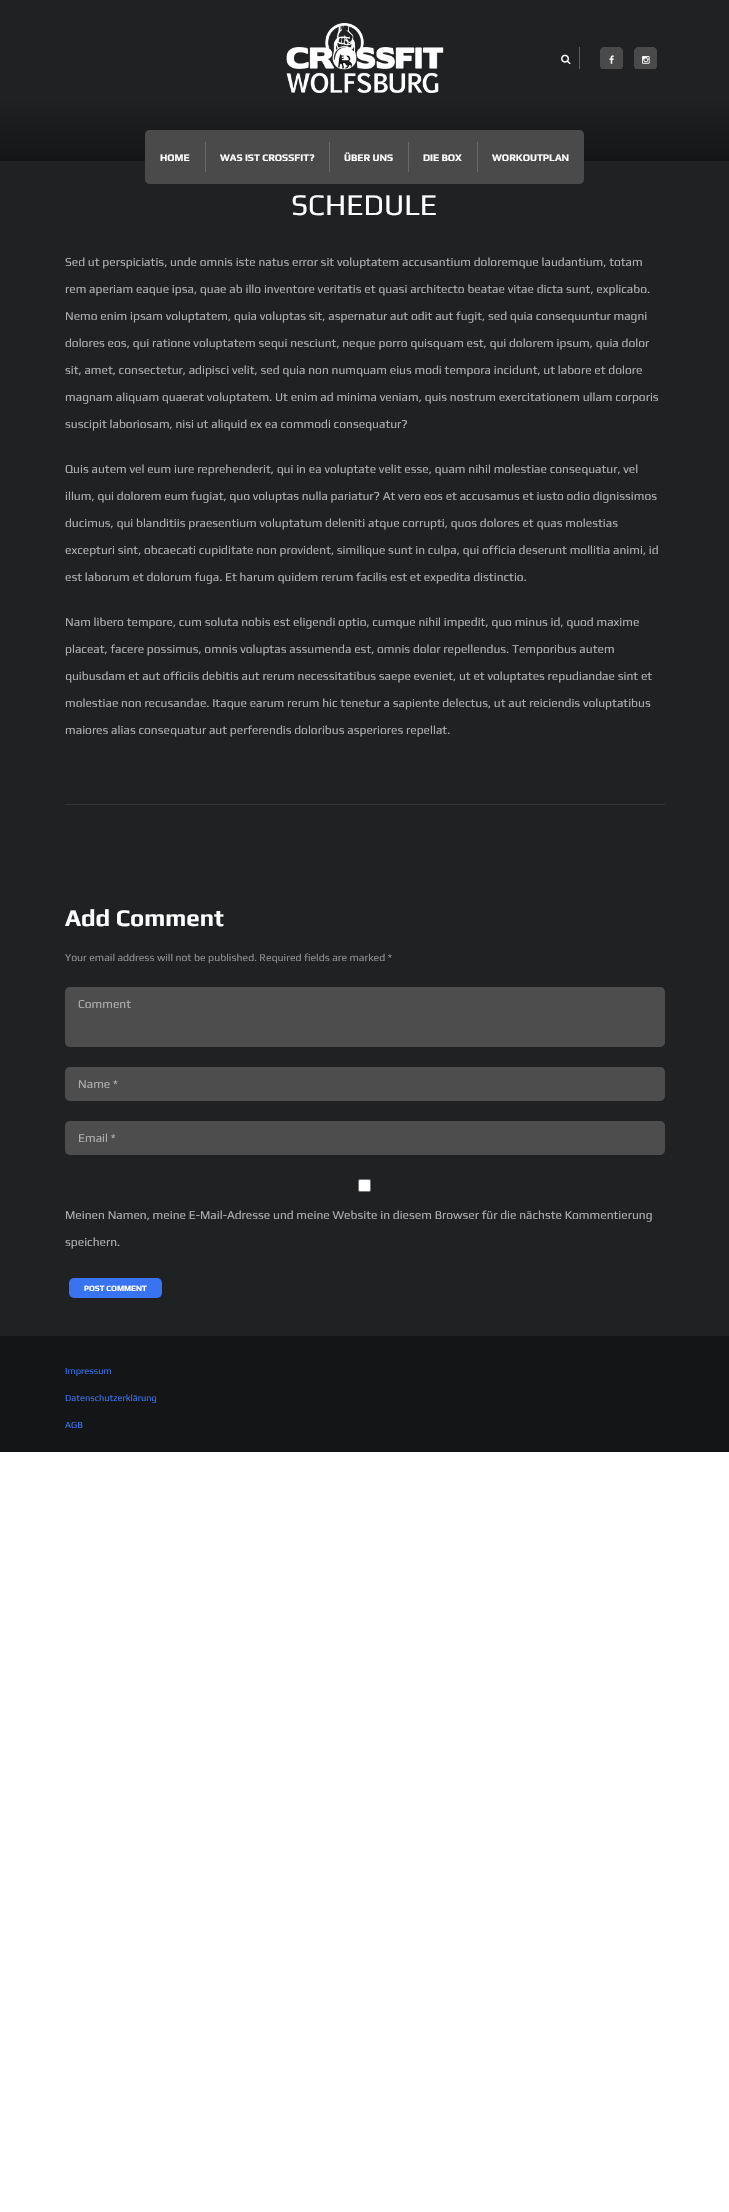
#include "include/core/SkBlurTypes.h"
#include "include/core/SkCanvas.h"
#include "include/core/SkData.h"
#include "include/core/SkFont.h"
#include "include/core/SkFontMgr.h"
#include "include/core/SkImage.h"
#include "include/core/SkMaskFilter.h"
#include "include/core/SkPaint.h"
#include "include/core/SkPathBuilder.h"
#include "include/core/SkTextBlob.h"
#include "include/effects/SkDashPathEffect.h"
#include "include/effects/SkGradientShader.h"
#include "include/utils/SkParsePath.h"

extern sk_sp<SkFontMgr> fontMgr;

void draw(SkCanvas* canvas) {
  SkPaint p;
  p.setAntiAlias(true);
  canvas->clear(SK_ColorWHITE);
  p.setColor(SkColorSetRGB(32, 33, 34));
  canvas->drawRect(SkRect::MakeLTRB(0, 161, 729, 1336), p);
  {
    const SkColor colors[] = {SkColorSetRGB(20, 21, 22), SkColorSetRGB(32, 33, 34)};
    const float stops[] = {0, 0.4f};
    const SkPoint ends[] = {{365, 161}, {365, 0}};
    p.setShader(SkGradientShader::MakeLinear(ends, colors, stops, 2, SkTileMode::kClamp));
    p.setAlpha(255);
  }
  canvas->drawRect(SkRect::MakeLTRB(0, 0, 729, 161), p);
  canvas->drawImageRect(SkImages::DeferredFromEncodedData(SkData::MakeFromFileName("images/1.png")), SkRect::MakeLTRB(286, 23, 444, 93), SkSamplingOptions());
  canvas->drawImageRect(SkImages::DeferredFromEncodedData(SkData::MakeFromFileName("images/2.png")), SkRect::MakeLTRB(561, 54, 571, 65), SkSamplingOptions());
  p.setShader(nullptr);
  p.setColor(SkColorSetRGB(91, 92, 93));
  canvas->drawRect(SkRect::MakeLTRB(579, 47, 580, 69), p);
  canvas->save();
  canvas->clipRect(SkRect::MakeLTRB(580, 47, 665, 69));
  p.setColor(SkColorSetRGB(74, 74, 74));
  canvas->drawRoundRect(SkRect::MakeLTRB(600, 47, 623, 70), 5, 5, p);
  canvas->restore();
  canvas->save();
  canvas->clipRect(SkRect::MakeLTRB(600, 47, 665, 69));
  p.setStyle(SkPaint::kStroke_Style);
  p.setStrokeWidth(2);
  canvas->drawRoundRect(SkRect::MakeLTRB(601, 48, 622, 69), 4, 4, p);
  canvas->restore();
  canvas->drawImageRect(SkImages::DeferredFromEncodedData(SkData::MakeFromFileName("images/3.png")), SkRect::MakeLTRB(609, 55, 614, 64), SkSamplingOptions());
  canvas->save();
  canvas->clipRect(SkRect::MakeLTRB(580, 47, 665, 69));
  p.setStyle(SkPaint::kFill_Style);
  canvas->drawRoundRect(SkRect::MakeLTRB(634, 47, 657, 70), 5, 5, p);
  canvas->restore();
  canvas->save();
  canvas->clipRect(SkRect::MakeLTRB(600, 47, 665, 69));
  p.setStyle(SkPaint::kStroke_Style);
  canvas->drawRoundRect(SkRect::MakeLTRB(635, 48, 656, 69), 4, 4, p);
  canvas->restore();
  canvas->drawImageRect(SkImages::DeferredFromEncodedData(SkData::MakeFromFileName("images/4.png")), SkRect::MakeLTRB(642, 56, 650, 64), SkSamplingOptions());
  p.setStyle(SkPaint::kFill_Style);
  canvas->drawPath(SkPathBuilder().moveTo(150, 130).lineTo(205, 130).lineTo(205, 184).lineTo(150, 184).cubicTo(147, 184, 145, 182, 145, 179).lineTo(145, 135).cubicTo(145, 132, 147, 130, 150, 130).close().detach(), p);
  canvas->drawRect(SkRect::MakeLTRB(205, 130, 477, 184), p);
  p.setColor(SkColorSetRGB(105, 105, 106));
  canvas->drawRect(SkRect::MakeLTRB(205, 142, 206, 172), p);
  canvas->drawRect(SkRect::MakeLTRB(329, 142, 330, 172), p);
  canvas->drawRect(SkRect::MakeLTRB(408, 142, 409, 172), p);
  p.setColor(SkColorSetRGB(74, 74, 74));
  canvas->drawPath(SkPathBuilder().moveTo(477, 130).lineTo(579, 130).cubicTo(582, 130, 584, 132, 584, 135).lineTo(584, 179).cubicTo(584, 182, 582, 184, 579, 184).lineTo(477, 184).close().detach(), p);
  p.setColor(SkColorSetRGB(105, 105, 106));
  canvas->drawRect(SkRect::MakeLTRB(477, 142, 478, 172), p);
  p.setColor(SkColorSetRGB(52, 53, 54));
  canvas->drawRect(SkRect::MakeLTRB(65, 804, 665, 805), p);
  p.setColor(SkColorSetRGB(77, 77, 78));
  canvas->drawRoundRect(SkRect::MakeLTRB(65, 987, 665, 1047), 5, 5, p);
  canvas->drawRoundRect(SkRect::MakeLTRB(65, 1067, 665, 1101), 5, 5, p);
  canvas->drawRoundRect(SkRect::MakeLTRB(65, 1121, 665, 1155), 5, 5, p);
  p.setColor(SK_ColorWHITE);
  canvas->drawRoundRect(SkRect::MakeLTRB(358.5f, 1179.5f, 370.5f, 1191.5f), 1.5f, 1.5f, p);
  p.setStyle(SkPaint::kStroke_Style);
  p.setStrokeWidth(1);
  p.setColor(SkColorSetRGB(118, 118, 118));
  canvas->drawRoundRect(SkRect::MakeLTRB(358.5f, 1179.5f, 370.5f, 1191.5f), 1.5f, 1.5f, p);
  p.setStyle(SkPaint::kFill_Style);
  p.setColor(SkColorSetRGB(56, 116, 241));
  canvas->drawRoundRect(SkRect::MakeLTRB(69, 1278, 162, 1298), 5, 5, p);
  p.setColor(SkColorSetRGB(20, 21, 22));
  canvas->drawRect(SkRect::MakeLTRB(0, 1336, 729, 1452), p);
  SkFont font1(fontMgr->matchFamilyStyle("Play", SkFontStyle::Bold()), 10);
  font1.setSubpixel(true);
  p.setColor(SK_ColorWHITE);
  canvas->drawString("HOME", 160, 161, font1, p);
  canvas->drawString("WAS IST CROSSFIT?", 220, 161, font1, p);
  canvas->drawString("ÜBER UNS", 344, 161, font1, p);
  canvas->drawString("DIE BOX", 423, 161, font1, p);
  canvas->drawString("WORKOUTPLAN", 492, 161, font1, p);
  SkFont font2(fontMgr->matchFamilyStyle("Play", SkFontStyle::Normal()), 30);
  font2.setSubpixel(true);
  canvas->drawString("SCHEDULE", 291, 215, font2, p);
  SkFont font3(fontMgr->matchFamilyStyle("Play", SkFontStyle::Normal()), 12);
  font3.setSubpixel(true);
  p.setColor(SkColorSetRGB(175, 175, 176));
  canvas->drawString("Sed ut perspiciatis, unde omnis iste natus error sit voluptatem accusantium doloremque laudantium, totam", 65, 266, font3, p);
  canvas->drawString("rem aperiam eaque ipsa, quae ab illo inventore veritatis et quasi architecto beatae vitae dicta sunt, explicabo.", 65, 293, font3, p);
  canvas->drawString("Nemo enim ipsam voluptatem, quia voluptas sit, aspernatur aut odit aut fugit, sed quia consequuntur magni", 65, 320, font3, p);
  canvas->drawString("dolores eos, qui ratione voluptatem sequi nesciunt, neque porro quisquam est, qui dolorem ipsum, quia dolor", 65, 347, font3, p);
  canvas->drawString("sit, amet, consectetur, adipisci velit, sed quia non numquam eius modi tempora incidunt, ut labore et dolore", 65, 374, font3, p);
  canvas->drawString("magnam aliquam quaerat voluptatem. Ut enim ad minima veniam, quis nostrum exercitationem ullam corporis", 65, 401, font3, p);
  canvas->drawString("suscipit laboriosam, nisi ut aliquid ex ea commodi consequatur?", 65, 428, font3, p);
  canvas->drawString("Quis autem vel eum iure reprehenderit, qui in ea voluptate velit esse, quam nihil molestiae consequatur, vel", 65, 473, font3, p);
  canvas->drawString("illum, qui dolorem eum fugiat, quo voluptas nulla pariatur? At vero eos et accusamus et iusto odio dignissimos", 65, 500, font3, p);
  canvas->drawString("ducimus, qui blanditiis praesentium voluptatum deleniti atque corrupti, quos dolores et quas molestias", 65, 527, font3, p);
  canvas->drawString("excepturi sint, obcaecati cupiditate non provident, similique sunt in culpa, qui officia deserunt mollitia animi, id", 65, 554, font3, p);
  canvas->drawString("est laborum et dolorum fuga. Et harum quidem rerum facilis est et expedita distinctio.", 65, 581, font3, p);
  canvas->drawString("Nam libero tempore, cum soluta nobis est eligendi optio, cumque nihil impedit, quo minus id, quod maxime", 65, 626, font3, p);
  canvas->drawString("placeat, facere possimus, omnis voluptas assumenda est, omnis dolor repellendus. Temporibus autem", 65, 653, font3, p);
  canvas->drawString("quibusdam et aut officiis debitis aut rerum necessitatibus saepe eveniet, ut et voluptates repudiandae sint et", 65, 680, font3, p);
  canvas->drawString("molestiae non recusandae. Itaque earum rerum hic tenetur a sapiente delectus, ut aut reiciendis voluptatibus", 65, 707, font3, p);
  canvas->drawString("maiores alias consequatur aut perferendis doloribus asperiores repellat.", 65, 734, font3, p);
  SkFont font4(fontMgr->matchFamilyStyle("Play", SkFontStyle::Bold()), 24);
  font4.setSubpixel(true);
  p.setColor(SK_ColorWHITE);
  canvas->drawString("Add Comment", 65, 926, font4, p);
  SkFont font5(fontMgr->matchFamilyStyle("Play", SkFontStyle::Normal()), 10.5f);
  font5.setSubpixel(true);
  p.setColor(SkColorSetRGB(144, 144, 144));
  canvas->drawString("Your email address will not be published. Required fields are marked *", 65, 961, font5, p);
  p.setColor(SkColorSetRGB(175, 175, 176));
  canvas->drawString("Comment", 78, 1008, font3, p);
  canvas->drawString("Name *", 78, 1088, font3, p);
  canvas->drawString("Email *", 78, 1142, font3, p);
  canvas->drawString("Meinen Namen, meine E-Mail-Adresse und meine Website in diesem Browser für die nächste Kommentierung", 65, 1219, font3, p);
  canvas->drawString("speichern.", 65, 1246, font3, p);
  SkFont font6(fontMgr->matchFamilyStyle("Play", SkFontStyle::Bold()), 8);
  font6.setSubpixel(true);
  p.setColor(SK_ColorWHITE);
  canvas->drawString("POST COMMENT", 84, 1291, font6, p);
  SkFont font7(fontMgr->matchFamilyStyle("Play", SkFontStyle::Normal()), 9.25f);
  font7.setSubpixel(true);
  p.setColor(SkColorSetRGB(56, 116, 241));
  canvas->drawString("Impressum", 65, 1374, font7, p);
  canvas->drawString("Datenschutzerklärung", 65, 1401, font7, p);
  canvas->drawString("AGB", 65, 1428, font7, p);
}
